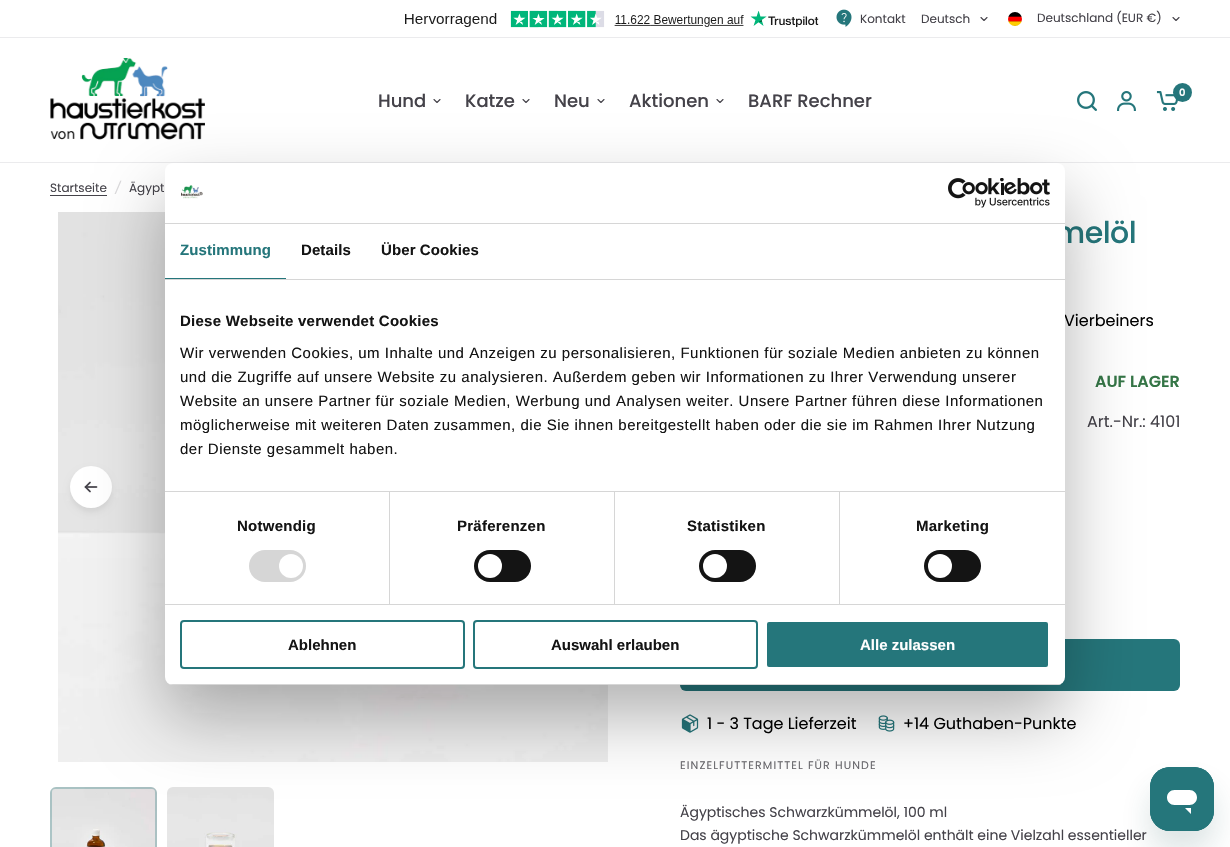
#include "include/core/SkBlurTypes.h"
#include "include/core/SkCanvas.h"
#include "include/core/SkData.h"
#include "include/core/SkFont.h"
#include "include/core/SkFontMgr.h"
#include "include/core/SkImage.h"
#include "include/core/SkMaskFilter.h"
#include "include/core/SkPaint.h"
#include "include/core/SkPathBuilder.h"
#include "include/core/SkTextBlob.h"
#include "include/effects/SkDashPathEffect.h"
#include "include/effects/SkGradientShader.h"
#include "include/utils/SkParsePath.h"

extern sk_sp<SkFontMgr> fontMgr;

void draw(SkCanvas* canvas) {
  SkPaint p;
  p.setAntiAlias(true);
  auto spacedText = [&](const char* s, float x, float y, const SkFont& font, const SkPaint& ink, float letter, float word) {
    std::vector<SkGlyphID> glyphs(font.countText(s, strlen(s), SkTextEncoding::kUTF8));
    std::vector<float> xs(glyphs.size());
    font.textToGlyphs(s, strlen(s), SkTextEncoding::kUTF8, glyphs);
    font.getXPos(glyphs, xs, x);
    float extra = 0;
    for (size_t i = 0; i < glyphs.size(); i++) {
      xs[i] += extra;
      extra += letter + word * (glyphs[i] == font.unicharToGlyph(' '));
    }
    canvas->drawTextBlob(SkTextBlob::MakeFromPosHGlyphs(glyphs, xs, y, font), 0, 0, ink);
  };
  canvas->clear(SK_ColorWHITE);
  p.setColor(SkColorSetRGB(235, 235, 237));
  canvas->drawRect(SkRect::MakeLTRB(0, 37, 1230, 38), p);
  canvas->drawImageRect(SkImages::DeferredFromEncodedData(SkData::MakeFromFileName("images/1.png")), SkRect::MakeLTRB(405, 10, 819, 28), SkSamplingOptions());
  canvas->drawImageRect(SkImages::DeferredFromEncodedData(SkData::MakeFromFileName("images/2.png")), SkRect::MakeLTRB(836, 9, 852, 27), SkSamplingOptions());
  p.setStyle(SkPaint::kStroke_Style);
  p.setStrokeWidth(1.1f);
  p.setStrokeCap(SkPaint::kRound_Cap);
  p.setStrokeJoin(SkPaint::kRound_Join);
  p.setColor(SkColorSetRGB(68, 66, 73));
  canvas->drawPath(SkPathBuilder().moveTo(987, 17.5f).lineTo(984, 20.5f).lineTo(981, 17.5f).detach(), p);
  canvas->drawImageRect(SkImages::DeferredFromEncodedData(SkData::MakeFromFileName("images/3.png")), SkRect::MakeLTRB(1008, 12, 1022, 26), SkSamplingOptions());
  canvas->drawPath(SkPathBuilder().moveTo(1179, 17.5f).lineTo(1176, 20.5f).lineTo(1173, 17.5f).detach(), p);
  canvas->drawImageRect(SkImages::DeferredFromEncodedData(SkData::MakeFromFileName("images/4.png")), SkRect::MakeLTRB(50, 58, 205, 140), SkSamplingOptions());
  canvas->drawImageRect(SkImages::DeferredFromEncodedData(SkData::MakeFromFileName("images/5.png")), SkRect::MakeLTRB(1077, 91, 1097, 111), SkSamplingOptions());
  canvas->drawImageRect(SkImages::DeferredFromEncodedData(SkData::MakeFromFileName("images/6.png")), SkRect::MakeLTRB(1117, 91, 1136, 111), SkSamplingOptions());
  canvas->drawImageRect(SkImages::DeferredFromEncodedData(SkData::MakeFromFileName("images/7.png")), SkRect::MakeLTRB(1156, 91, 1178, 111), SkSamplingOptions());
  p.setStyle(SkPaint::kFill_Style);
  p.setColor(SkColorSetRGB(37, 118, 123));
  canvas->drawCircle(1182.5f, 92.5f, 9.5f, p);
  p.setStyle(SkPaint::kStroke_Style);
  p.setColor(SkColorSetRGB(68, 66, 73));
  canvas->drawPath(SkPathBuilder().moveTo(440, 99.5f).lineTo(437, 102.5f).lineTo(434, 99.5f).detach(), p);
  canvas->drawPath(SkPathBuilder().moveTo(529, 99.5f).lineTo(526, 102.5f).lineTo(523, 99.5f).detach(), p);
  canvas->drawPath(SkPathBuilder().moveTo(604, 99.5f).lineTo(601, 102.5f).lineTo(598, 99.5f).detach(), p);
  canvas->drawPath(SkPathBuilder().moveTo(723, 99.5f).lineTo(720, 102.5f).lineTo(717, 99.5f).detach(), p);
  p.setStyle(SkPaint::kFill_Style);
  p.setColor(SkColorSetRGB(235, 235, 237));
  canvas->drawRect(SkRect::MakeLTRB(0, 162, 1230, 163), p);
  p.setColor(SkColorSetRGB(68, 66, 73));
  canvas->drawRect(SkRect::MakeLTRB(50, 195, 107, 196), p);
  canvas->drawImageRect(SkImages::DeferredFromEncodedData(SkData::MakeFromFileName("images/8.png")), SkRect::MakeLTRB(58, 212, 608, 762), SkSamplingOptions());
  p.setColor(SkColorSetARGB(20, 0, 0, 0));
  p.setMaskFilter(SkMaskFilter::MakeBlur(kNormal_SkBlurStyle, 3));
  canvas->drawRoundRect(SkRect::MakeLTRB(70, 470, 112, 512), 21, 21, p);
  p.setMaskFilter(nullptr);
  p.setColor(SK_ColorWHITE);
  canvas->drawCircle(91, 487, 21, p);
  canvas->drawImageRect(SkImages::DeferredFromEncodedData(SkData::MakeFromFileName("images/9.png")), SkRect::MakeLTRB(84, 481, 98, 493), SkSamplingOptions());
  canvas->drawImageRect(SkImages::DeferredFromEncodedData(SkData::MakeFromFileName("images/10.png")), SkRect::MakeLTRB(50, 787, 157, 847), SkSamplingOptions());
  p.setColor(SkColorSetARGB(77, 37, 118, 123));
  canvas->drawPath(SkPathBuilder(SkPathFillType::kEvenOdd).moveTo(56, 787).cubicTo(53, 787, 50, 790, 50, 793).lineTo(50, 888).cubicTo(50, 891, 53, 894, 56, 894).lineTo(151, 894).cubicTo(154, 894, 157, 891, 157, 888).lineTo(157, 793).cubicTo(157, 790, 154, 787, 151, 787).close().moveTo(55, 789).cubicTo(53, 789, 52, 790, 52, 792).lineTo(52, 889).cubicTo(52, 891, 53, 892, 55, 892).lineTo(152, 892).cubicTo(154, 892, 155, 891, 155, 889).lineTo(155, 792).cubicTo(155, 790, 154, 789, 152, 789).close().detach(), p);
  canvas->drawImageRect(SkImages::DeferredFromEncodedData(SkData::MakeFromFileName("images/11.png")), SkRect::MakeLTRB(167, 787, 274, 847), SkSamplingOptions());
  p.setColor(SkColorSetRGB(37, 118, 123));
  canvas->drawRoundRect(SkRect::MakeLTRB(680, 639, 1180, 691), 6, 6, p);
  canvas->drawImageRect(SkImages::DeferredFromEncodedData(SkData::MakeFromFileName("images/12.png")), SkRect::MakeLTRB(681, 714, 699, 733), SkSamplingOptions());
  canvas->drawImageRect(SkImages::DeferredFromEncodedData(SkData::MakeFromFileName("images/13.png")), SkRect::MakeLTRB(878, 715, 895, 732), SkSamplingOptions());
  p.setColor(SkColorSetARGB(38, 23, 73, 77));
  p.setMaskFilter(SkMaskFilter::MakeBlur(kNormal_SkBlurStyle, 15));
  canvas->drawRoundRect(SkRect::MakeLTRB(1150, 787, 1214, 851), 20, 20, p);
  p.setMaskFilter(nullptr);
  canvas->drawImageRect(SkImages::DeferredFromEncodedData(SkData::MakeFromFileName("images/16.png")), SkRect::MakeLTRB(1150, 767, 1214, 831), SkSamplingOptions());
  SkFont font1(fontMgr->matchFamilyStyle("Poppins", SkFontStyle::Normal()), 12);
  font1.setSubpixel(true);
  p.setColor(SkColorSetRGB(68, 66, 73));
  canvas->drawString("Kontakt", 860, 23, font1, p);
  canvas->drawString("Deutsch", 921, 23, font1, p);
  canvas->drawString("Deutschland (EUR €)", 1037, 22, font1, p);
  SkFont font2(fontMgr->matchFamilyStyle("Poppins", SkFontStyle(600, SkFontStyle::kNormal_Width, SkFontStyle::kUpright_Slant)), 10);
  font2.setSubpixel(true);
  p.setColor(SK_ColorWHITE);
  canvas->drawString("0", 1179, 96, font2, p);
  SkFont font3(fontMgr->matchFamilyStyle("Poppins", SkFontStyle(500, SkFontStyle::kNormal_Width, SkFontStyle::kUpright_Slant)), 18);
  font3.setSubpixel(true);
  p.setColor(SkColorSetRGB(68, 66, 73));
  canvas->drawString("Hund", 378, 107, font3, p);
  canvas->drawString("Katze", 465, 107, font3, p);
  canvas->drawString("Neu", 554, 107, font3, p);
  canvas->drawString("Aktionen", 629, 107, font3, p);
  canvas->drawString("BARF Rechner", 748, 107, font3, p);
  canvas->drawString("Startseite", 50, 192, font1, p);
  SkFont font4(fontMgr->matchFamilyStyle("Poppins", SkFontStyle::Italic()), 12);
  font4.setSubpixel(true);
  p.setColor(SkColorSetRGB(218, 217, 219));
  canvas->drawString("/", 115, 192, font4, p);
  p.setColor(SkColorSetRGB(68, 66, 73));
  canvas->drawString("Ägypt", 129, 192, font1, p);
  SkFont font5(fontMgr->matchFamilyStyle("Poppins", SkFontStyle(500, SkFontStyle::kNormal_Width, SkFontStyle::kUpright_Slant)), 30);
  font5.setSubpixel(true);
  p.setColor(SkColorSetRGB(37, 118, 123));
  spacedText("melöl", 1054, 243, font5, p, -0.5f, 0);
  SkFont font6(fontMgr->matchFamilyStyle("Poppins", SkFontStyle::Normal()), 16);
  font6.setSubpixel(true);
  p.setColor(SK_ColorBLACK);
  canvas->drawString("Vierbeiners", 1064, 326, font6, p);
  SkFont font7(fontMgr->matchFamilyStyle("Poppins", SkFontStyle(600, SkFontStyle::kNormal_Width, SkFontStyle::kUpright_Slant)), 16);
  font7.setSubpixel(true);
  p.setColor(SkColorSetRGB(52, 117, 70));
  canvas->drawString("AUF LAGER", 1095, 387, font7, p);
  p.setColor(SkColorSetRGB(68, 66, 73));
  canvas->drawString("Art.-Nr.: 4101", 1087, 427, font6, p);
  p.setColor(SK_ColorBLACK);
  canvas->drawString("1 - 3 Tage Lieferzeit", 707, 729, font6, p);
  canvas->drawString("+14 Guthaben-Punkte", 903, 729, font6, p);
  SkFont font8(fontMgr->matchFamilyStyle("Poppins", SkFontStyle::Normal()), 11);
  font8.setSubpixel(true);
  p.setColor(SkColorSetRGB(105, 104, 109));
  spacedText("EINZELFUTTERMITTEL FÜR HUNDE", 680, 769, font8, p, 1.1f, 0);
  SkFont font9(fontMgr->matchFamilyStyle("Poppins", SkFontStyle::Normal()), 14);
  font9.setSubpixel(true);
  p.setColor(SkColorSetRGB(68, 66, 73));
  canvas->drawString("Ägyptisches Schwarzkümmelöl, 100 ml", 680, 817, font9, p);
  canvas->drawString("Das ägyptische Schwarzkümmelöl enthält eine Vielzahl essentieller", 680, 840, font9, p);
  p.setStyle(SkPaint::kStroke_Style);
  p.setStrokeWidth(1.5f);
  p.setColor(SK_ColorWHITE);
  canvas->drawPath(SkPathBuilder().moveTo(1176, 403).lineTo(1164, 415).moveTo(1176, 415).lineTo(1164, 403).detach(), p);
  p.setStyle(SkPaint::kFill_Style);
  p.setColor(SkColorSetARGB(77, 0, 0, 0));
  p.setMaskFilter(SkMaskFilter::MakeBlur(kNormal_SkBlurStyle, 34));
  canvas->drawRoundRect(SkRect::MakeLTRB(165, 195, 1065, 717), 8, 8, p);
  p.setMaskFilter(nullptr);
  p.setColor(SK_ColorWHITE);
  canvas->drawRoundRect(SkRect::MakeLTRB(165, 163, 1065, 685), 8, 8, p);
  p.setColor(SkColorSetRGB(214, 214, 214));
  canvas->drawRect(SkRect::MakeLTRB(165, 223, 1065, 224), p);
  canvas->drawImageRect(SkImages::DeferredFromEncodedData(SkData::MakeFromFileName("images/14.png")), SkRect::MakeLTRB(181, 185, 203, 199), SkSamplingOptions());
  canvas->drawImageRect(SkImages::DeferredFromEncodedData(SkData::MakeFromFileName("images/15.png")), SkRect::MakeLTRB(948, 178, 1050, 208), SkSamplingOptions());
  canvas->drawRect(SkRect::MakeLTRB(165, 279, 1065, 280), p);
  p.setColor(SkColorSetRGB(37, 118, 123));
  canvas->drawRect(SkRect::MakeLTRB(165, 278, 286, 279), p);
  SkFont font10(fontMgr->matchFamilyStyle("Liberation Sans", SkFontStyle::Bold()), 15);
  font10.setSubpixel(true);
  spacedText("Zustimmung", 180, 255, font10, p, 0.1f, 0);
  p.setColor(SkColorSetRGB(20, 20, 20));
  spacedText("Details", 301, 255, font10, p, 0.1f, 0);
  spacedText("Über Cookies", 381, 255, font10, p, 0.1f, 0);
  p.setColor(SkColorSetRGB(214, 214, 214));
  canvas->drawRect(SkRect::MakeLTRB(165, 491, 1065, 492), p);
  p.setColor(SkColorSetRGB(20, 20, 20));
  spacedText("Diese Webseite verwendet Cookies", 180, 326, font10, p, 0.25f, 0);
  SkFont font11(fontMgr->matchFamilyStyle("Liberation Sans", SkFontStyle::Normal()), 15);
  font11.setSubpixel(true);
  spacedText("Wir verwenden Cookies, um Inhalte und Anzeigen zu personalisieren, Funktionen für soziale Medien anbieten zu können", 180, 358, font11, p, 0.5f, 0);
  spacedText("und die Zugriffe auf unsere Website zu analysieren. Außerdem geben wir Informationen zu Ihrer Verwendung unserer", 180, 382, font11, p, 0.5f, 0);
  spacedText("Website an unsere Partner für soziale Medien, Werbung und Analysen weiter. Unsere Partner führen diese Informationen", 180, 406, font11, p, 0.5f, 0);
  spacedText("möglicherweise mit weiteren Daten zusammen, die Sie ihnen bereitgestellt haben oder die sie im Rahmen Ihrer Nutzung", 180, 430, font11, p, 0.5f, 0);
  spacedText("der Dienste gesammelt haben.", 180, 454, font11, p, 0.5f, 0);
  p.setColor(SkColorSetRGB(214, 214, 214));
  canvas->drawRect(SkRect::MakeLTRB(165, 604, 1065, 605), p);
  canvas->drawRect(SkRect::MakeLTRB(389, 492, 390, 604), p);
  p.setColor(SkColorSetRGB(20, 20, 20));
  spacedText("Notwendig", 237, 531, font10, p, 0.25f, 0);
  p.setColor(SkColorSetRGB(214, 214, 214));
  canvas->drawRoundRect(SkRect::MakeLTRB(249, 550, 306, 582), 16, 16, p);
  p.setColor(SK_ColorWHITE);
  canvas->drawCircle(291, 566, 12, p);
  p.setColor(SkColorSetRGB(214, 214, 214));
  canvas->drawRect(SkRect::MakeLTRB(614, 492, 615, 604), p);
  p.setColor(SkColorSetRGB(20, 20, 20));
  spacedText("Präferenzen", 457, 531, font10, p, 0.25f, 0);
  canvas->drawRoundRect(SkRect::MakeLTRB(474, 550, 531, 582), 16, 16, p);
  p.setColor(SK_ColorWHITE);
  canvas->drawCircle(490, 566, 12, p);
  p.setColor(SkColorSetRGB(214, 214, 214));
  canvas->drawRect(SkRect::MakeLTRB(839, 492, 840, 604), p);
  p.setColor(SkColorSetRGB(20, 20, 20));
  spacedText("Statistiken", 687, 531, font10, p, 0.25f, 0);
  canvas->drawRoundRect(SkRect::MakeLTRB(699, 550, 756, 582), 16, 16, p);
  p.setColor(SK_ColorWHITE);
  canvas->drawCircle(715, 566, 12, p);
  p.setColor(SkColorSetRGB(20, 20, 20));
  spacedText("Marketing", 916, 531, font10, p, 0.25f, 0);
  canvas->drawRoundRect(SkRect::MakeLTRB(924, 550, 981, 582), 16, 16, p);
  p.setColor(SK_ColorWHITE);
  canvas->drawCircle(940, 566, 12, p);
  canvas->save();
  canvas->clipPath(SkPathBuilder().moveTo(173, 163).lineTo(1057, 163).cubicTo(1061.5f, 163, 1065, 166.5f, 1065, 171).lineTo(1065, 677).cubicTo(1065, 681.5f, 1061.5f, 685, 1057, 685).lineTo(173, 685).cubicTo(168.5f, 685, 165, 681.5f, 165, 677).lineTo(165, 171).cubicTo(165, 166.5f, 168.5f, 163, 173, 163).close().detach(), true);
  p.setColor(SkColorSetRGB(214, 214, 214));
  canvas->drawRect(SkRect::MakeLTRB(165, 684, 1065, 685), p);
  canvas->restore();
  p.setStyle(SkPaint::kStroke_Style);
  p.setStrokeWidth(2);
  p.setStrokeCap(SkPaint::kButt_Cap);
  p.setStrokeJoin(SkPaint::kMiter_Join);
  p.setColor(SkColorSetRGB(37, 118, 123));
  canvas->drawRoundRect(SkRect::MakeLTRB(181, 621, 464, 668), 3, 3, p);
  p.setStyle(SkPaint::kFill_Style);
  p.setColor(SkColorSetRGB(20, 20, 20));
  canvas->drawString("Ablehnen", 288, 650, font10, p);
  p.setStyle(SkPaint::kStroke_Style);
  p.setColor(SkColorSetRGB(37, 118, 123));
  canvas->drawRoundRect(SkRect::MakeLTRB(474, 621, 757, 668), 3, 3, p);
  p.setStyle(SkPaint::kFill_Style);
  p.setColor(SkColorSetRGB(20, 20, 20));
  canvas->drawString("Auswahl erlauben", 551, 650, font10, p);
  p.setColor(SkColorSetRGB(37, 118, 123));
  canvas->drawRoundRect(SkRect::MakeLTRB(766, 621, 1049, 668), 3, 3, p);
  p.setStyle(SkPaint::kStroke_Style);
  p.setColor(SK_ColorWHITE);
  canvas->drawRoundRect(SkRect::MakeLTRB(766, 621, 1049, 668), 3, 3, p);
  p.setStyle(SkPaint::kFill_Style);
  canvas->drawString("Alle zulassen", 860, 650, font10, p);
}
